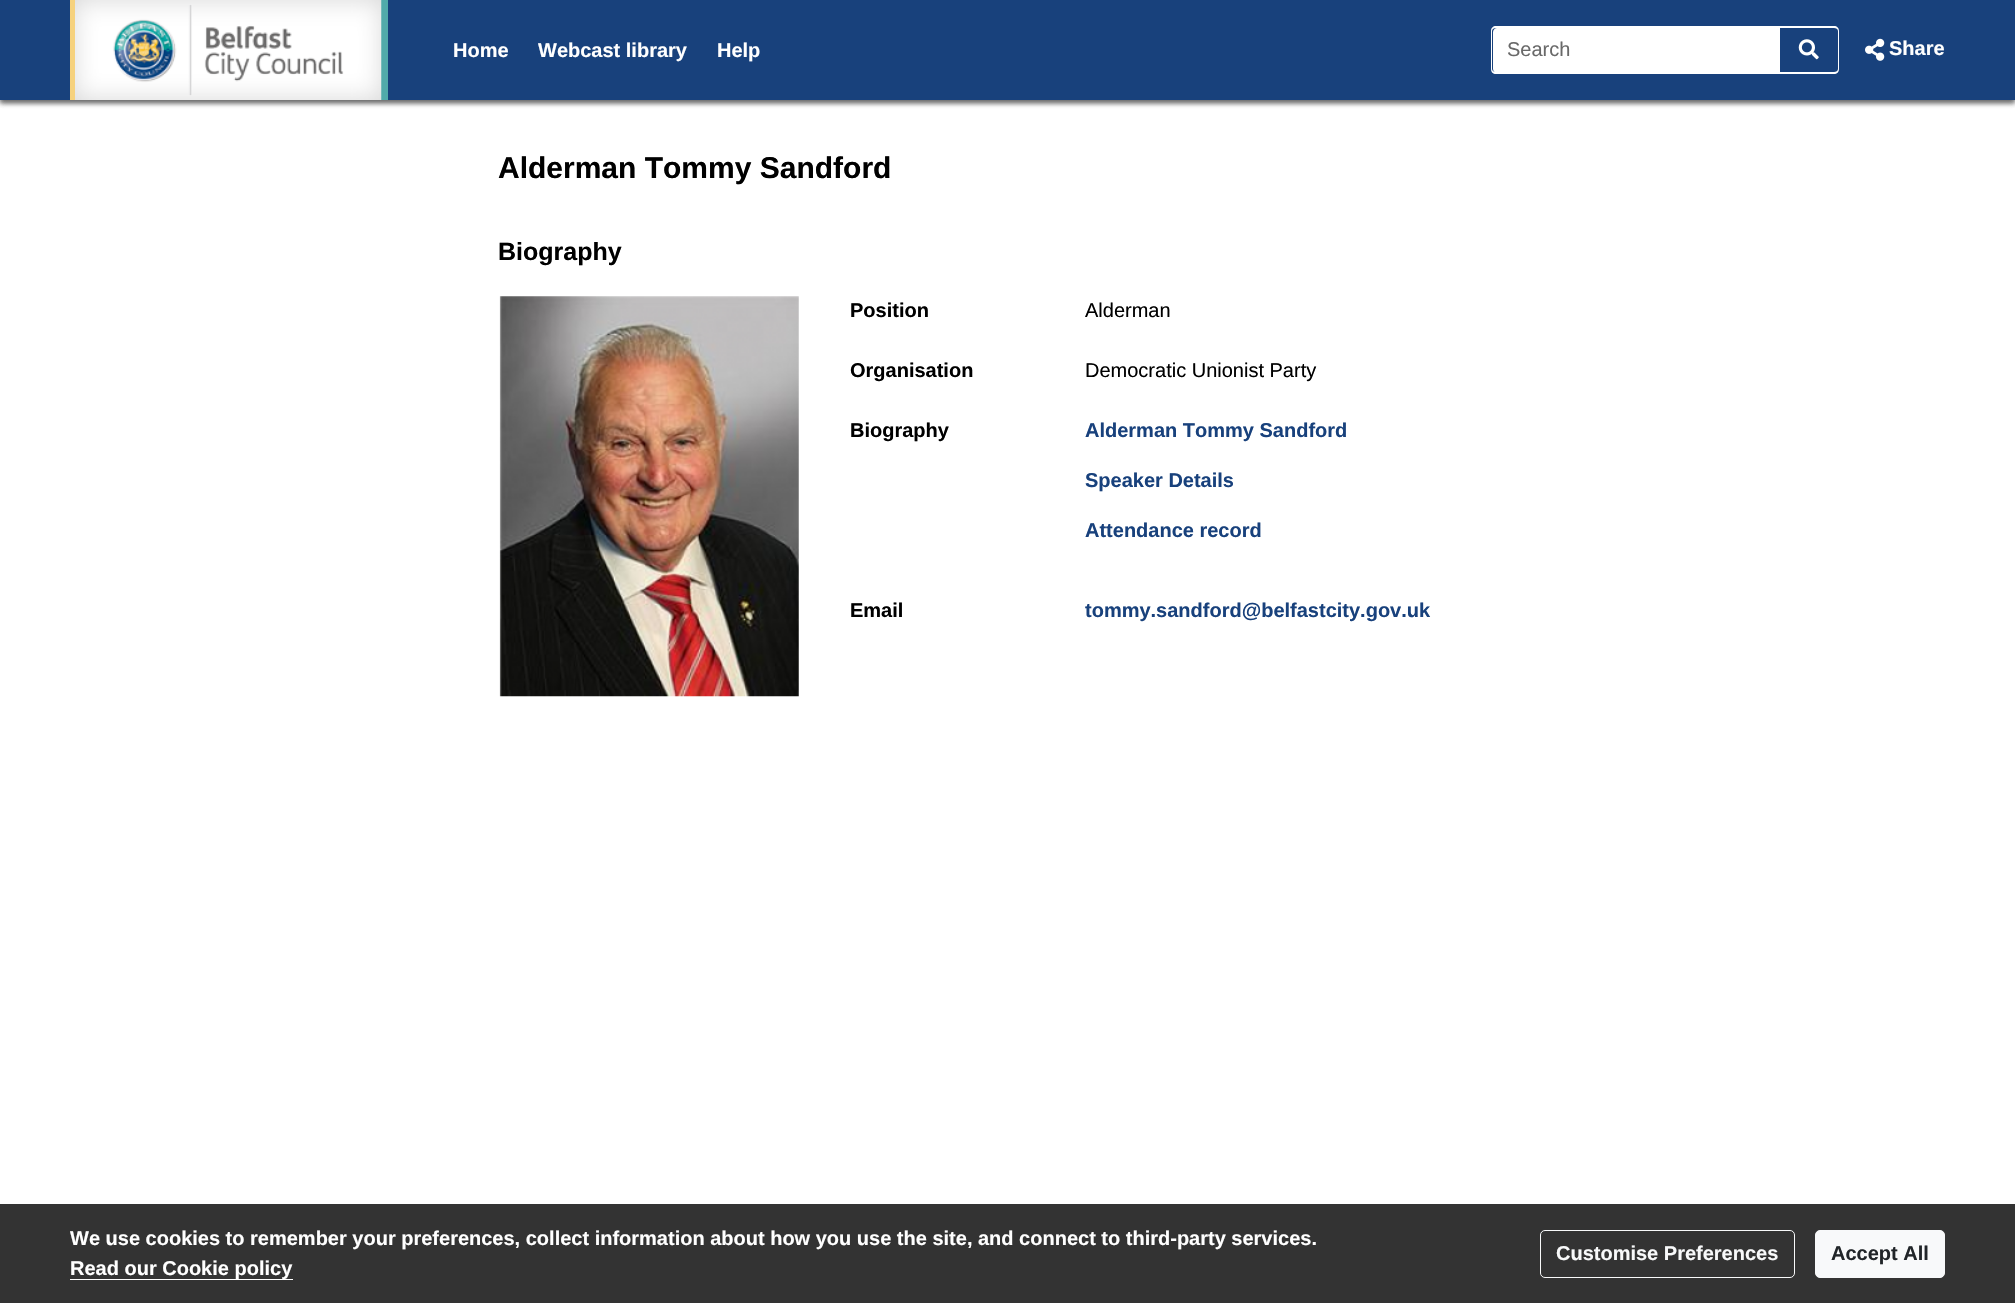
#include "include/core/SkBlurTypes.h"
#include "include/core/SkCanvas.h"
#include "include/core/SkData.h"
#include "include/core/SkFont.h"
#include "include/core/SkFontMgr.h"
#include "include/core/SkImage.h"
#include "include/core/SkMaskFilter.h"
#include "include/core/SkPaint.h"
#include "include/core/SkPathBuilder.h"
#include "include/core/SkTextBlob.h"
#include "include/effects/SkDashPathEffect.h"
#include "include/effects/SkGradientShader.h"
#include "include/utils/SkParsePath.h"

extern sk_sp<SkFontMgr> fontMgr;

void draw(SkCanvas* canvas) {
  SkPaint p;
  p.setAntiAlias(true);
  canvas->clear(SK_ColorWHITE);
  p.setColor(SkColorSetARGB(128, 51, 51, 51));
  p.setMaskFilter(SkMaskFilter::MakeBlur(kNormal_SkBlurStyle, 2.5f));
  canvas->drawRect(SkRect::MakeLTRB(0, 3, 2015, 103), p);
  p.setMaskFilter(nullptr);
  p.setMaskFilter(SkMaskFilter::MakeBlur(kNormal_SkBlurStyle, 2.5f));
  canvas->drawRect(SkRect::MakeLTRB(0, 3, 2015, 103), p);
  p.setMaskFilter(nullptr);
  p.setColor(SkColorSetRGB(24, 65, 124));
  canvas->drawRect(SkRect::MakeLTRB(0, 0, 2015, 100), p);
  p.setColor(SkColorSetRGB(246, 210, 126));
  canvas->drawRect(SkRect::MakeLTRB(70, 0, 75, 100), p);
  p.setColor(SkColorSetRGB(81, 170, 170));
  canvas->drawRect(SkRect::MakeLTRB(381, 0, 388, 100), p);
  canvas->drawImageRect(SkImages::DeferredFromEncodedData(SkData::MakeFromFileName("images/1.png")), SkRect::MakeLTRB(75, 0, 382, 100), SkSamplingOptions());
  p.setColor(SK_ColorWHITE);
  canvas->drawPath(SkPathBuilder().moveTo(1497, 28).lineTo(1781, 28).lineTo(1781, 73).lineTo(1497, 73).cubicTo(1495, 73, 1493, 71, 1493, 69).lineTo(1493, 32).cubicTo(1493, 30, 1495, 28, 1497, 28).close().detach(), p);
  canvas->drawPath(SkPathBuilder(SkPathFillType::kEvenOdd).moveTo(1496, 26).lineTo(1781, 26).lineTo(1781, 74).lineTo(1496, 74).cubicTo(1493, 74, 1491, 72, 1491, 69).lineTo(1491, 31).cubicTo(1491, 28, 1493, 26, 1496, 26).close().moveTo(1496, 28).lineTo(1781, 28).lineTo(1781, 72).lineTo(1496, 72).cubicTo(1494, 72, 1492, 71, 1492, 69).lineTo(1492, 31).cubicTo(1492, 29, 1494, 28, 1496, 28).close().detach(), p);
  p.setColor(SkColorSetRGB(24, 65, 124));
  canvas->drawPath(SkPathBuilder().moveTo(1780, 26).lineTo(1834, 26).cubicTo(1837, 26, 1839, 28, 1839, 31).lineTo(1839, 69).cubicTo(1839, 72, 1837, 74, 1834, 74).lineTo(1780, 74).close().detach(), p);
  p.setColor(SK_ColorWHITE);
  canvas->drawPath(SkPathBuilder(SkPathFillType::kEvenOdd).moveTo(1780, 26).lineTo(1834, 26).cubicTo(1837, 26, 1839, 28, 1839, 31).lineTo(1839, 69).cubicTo(1839, 72, 1837, 74, 1834, 74).lineTo(1780, 74).close().moveTo(1780, 28).lineTo(1834, 28).cubicTo(1836, 28, 1838, 29, 1838, 31).lineTo(1838, 69).cubicTo(1838, 71, 1836, 72, 1834, 72).lineTo(1780, 72).close().detach(), p);
  canvas->drawImageRect(SkImages::DeferredFromEncodedData(SkData::MakeFromFileName("images/2.png")), SkRect::MakeLTRB(1798, 39, 1819, 60), SkSamplingOptions());
  canvas->drawImageRect(SkImages::DeferredFromEncodedData(SkData::MakeFromFileName("images/3.png")), SkRect::MakeLTRB(1865, 38, 1885, 61), SkSamplingOptions());
  canvas->drawImageRect(SkImages::DeferredFromEncodedData(SkData::MakeFromFileName("images/4.png")), SkRect::MakeLTRB(499, 296, 799, 697), SkSamplingOptions());
  p.setColor(SkColorSetRGB(51, 51, 51));
  canvas->drawRect(SkRect::MakeLTRB(0, 1204, 2015, 1303), p);
  p.setColor(SK_ColorWHITE);
  canvas->drawRect(SkRect::MakeLTRB(70, 1279, 293, 1280), p);
  p.setStyle(SkPaint::kStroke_Style);
  p.setStrokeWidth(1);
  p.setColor(SkColorSetRGB(248, 249, 250));
  canvas->drawRoundRect(SkRect::MakeLTRB(1540.5f, 1230.5f, 1794.5f, 1277.5f), 4.5f, 4.5f, p);
  p.setStyle(SkPaint::kFill_Style);
  canvas->drawRoundRect(SkRect::MakeLTRB(1815.5f, 1230.5f, 1944.5f, 1277.5f), 4.5f, 4.5f, p);
  p.setStyle(SkPaint::kStroke_Style);
  canvas->drawRoundRect(SkRect::MakeLTRB(1815.5f, 1230.5f, 1944.5f, 1277.5f), 4.5f, 4.5f, p);
  SkFont font1(fontMgr->matchFamilyStyle("Liberation Sans", SkFontStyle::Bold()), 20);
  font1.setSubpixel(true);
  p.setStyle(SkPaint::kFill_Style);
  p.setColor(SK_ColorWHITE);
  canvas->drawString("Home", 453, 57, font1, p);
  canvas->drawString("Webcast library", 538, 57, font1, p);
  canvas->drawString("Help", 717, 57, font1, p);
  SkFont font2(fontMgr->matchFamilyStyle("Liberation Sans", SkFontStyle::Normal()), 20);
  font2.setSubpixel(true);
  p.setColor(SkColorSetRGB(105, 105, 105));
  canvas->drawString("Search", 1507, 56, font2, p);
  p.setColor(SK_ColorWHITE);
  canvas->drawString("Share", 1889, 55, font1, p);
  SkFont font3(fontMgr->matchFamilyStyle("Liberation Sans", SkFontStyle::Bold()), 30);
  font3.setSubpixel(true);
  p.setColor(SK_ColorBLACK);
  canvas->drawString("Alderman Tommy Sandford", 498, 178, font3, p);
  SkFont font4(fontMgr->matchFamilyStyle("Liberation Sans", SkFontStyle::Bold()), 25);
  font4.setSubpixel(true);
  canvas->drawString("Biography", 498, 260, font4, p);
  canvas->drawString("Position", 850, 317, font1, p);
  canvas->drawString("Alderman", 1085, 317, font2, p);
  canvas->drawString("Organisation", 850, 377, font1, p);
  canvas->drawString("Democratic Unionist Party", 1085, 377, font2, p);
  canvas->drawString("Biography", 850, 437, font1, p);
  p.setColor(SkColorSetRGB(24, 65, 124));
  canvas->drawString("Alderman Tommy Sandford", 1085, 437, font1, p);
  canvas->drawString("Speaker Details", 1085, 487, font1, p);
  canvas->drawString("Attendance record", 1085, 537, font1, p);
  p.setColor(SK_ColorBLACK);
  canvas->drawString("Email", 850, 617, font1, p);
  p.setColor(SkColorSetRGB(24, 65, 124));
  canvas->drawString("tommy.sandford@belfastcity.gov.uk", 1085, 617, font1, p);
  p.setColor(SK_ColorWHITE);
  canvas->drawString("We use cookies to remember your preferences, collect information about how you use the site, and connect to third-party services.", 70, 1245, font1, p);
  canvas->drawString("Read our Cookie policy", 70, 1275, font1, p);
  p.setColor(SkColorSetRGB(248, 249, 250));
  canvas->drawString("Customise Preferences", 1556, 1260, font1, p);
  p.setColor(SkColorSetRGB(33, 37, 41));
  canvas->drawString("Accept All", 1831, 1260, font1, p);
}
